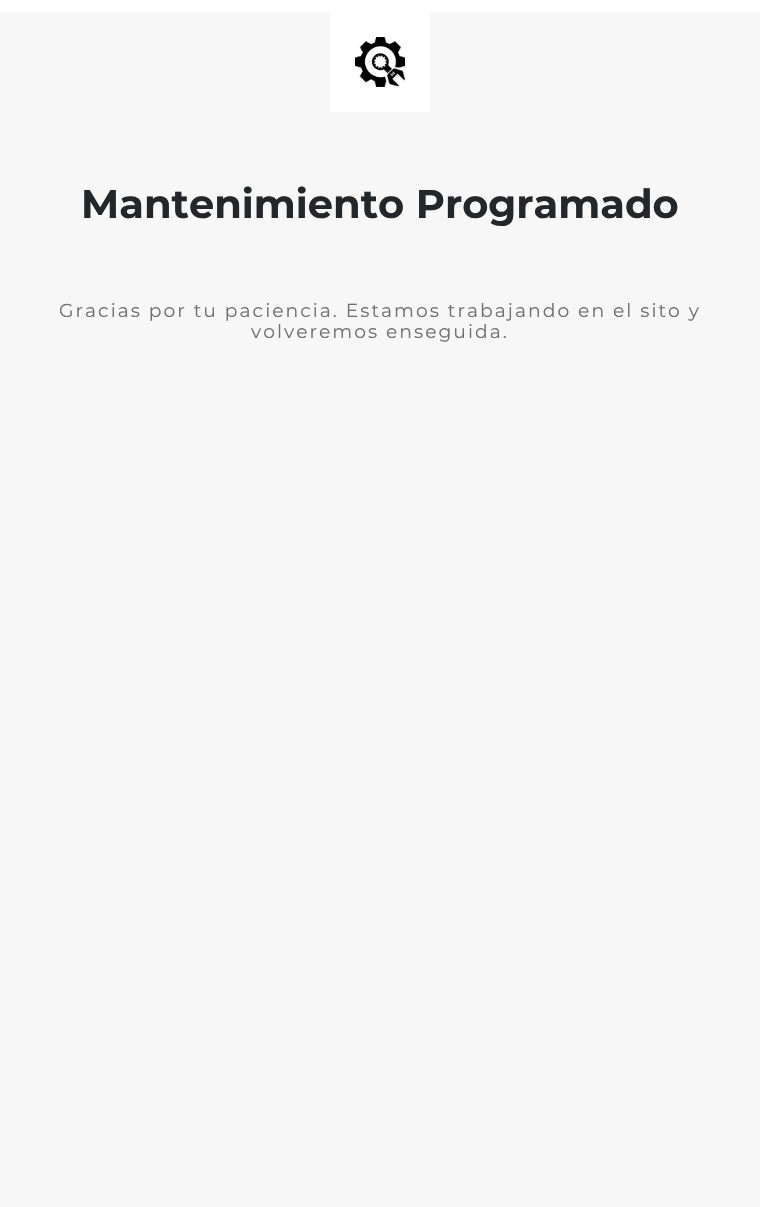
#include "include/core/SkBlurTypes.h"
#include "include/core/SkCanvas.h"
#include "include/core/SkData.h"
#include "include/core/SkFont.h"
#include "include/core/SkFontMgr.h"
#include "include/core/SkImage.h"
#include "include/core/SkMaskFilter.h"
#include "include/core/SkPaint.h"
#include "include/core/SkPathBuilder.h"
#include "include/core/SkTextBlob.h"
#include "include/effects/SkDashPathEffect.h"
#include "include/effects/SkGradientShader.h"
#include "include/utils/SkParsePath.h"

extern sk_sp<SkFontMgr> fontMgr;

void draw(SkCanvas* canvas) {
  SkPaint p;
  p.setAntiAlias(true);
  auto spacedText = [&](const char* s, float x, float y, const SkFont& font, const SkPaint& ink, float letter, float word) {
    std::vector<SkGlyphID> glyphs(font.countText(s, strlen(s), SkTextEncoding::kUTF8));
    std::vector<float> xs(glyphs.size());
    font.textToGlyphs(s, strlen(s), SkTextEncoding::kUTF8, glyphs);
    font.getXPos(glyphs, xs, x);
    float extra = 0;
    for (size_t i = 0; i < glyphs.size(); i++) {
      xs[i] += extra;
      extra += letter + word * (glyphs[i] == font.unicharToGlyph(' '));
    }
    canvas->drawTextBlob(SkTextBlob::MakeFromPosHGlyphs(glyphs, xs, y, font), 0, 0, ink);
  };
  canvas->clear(SkColorSetRGB(247, 247, 247));
  p.setColor(SK_ColorWHITE);
  canvas->drawRect(SkRect::MakeLTRB(0, 0, 760, 12), p);
  canvas->drawRect(SkRect::MakeLTRB(330, 12, 430, 112), p);
  canvas->drawImageRect(SkImages::DeferredFromEncodedData(SkData::MakeFromFileName("images/1.png")), SkRect::MakeLTRB(355, 37, 405, 87), SkSamplingOptions());
  SkFont font1(fontMgr->matchFamilyStyle("Montserrat", SkFontStyle(100, SkFontStyle::kNormal_Width, SkFontStyle::kUpright_Slant)), 40);
  font1.setSubpixel(true);
  p.setColor(SkColorSetRGB(35, 39, 42));
  canvas->drawString("Mantenimiento Programado", 81, 218, font1, p);
  SkFont font2(fontMgr->matchFamilyStyle("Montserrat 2", SkFontStyle(100, SkFontStyle::kNormal_Width, SkFontStyle::kUpright_Slant)), 18.75f);
  font2.setSubpixel(true);
  p.setColor(SkColorSetRGB(112, 112, 112));
  spacedText("Gracias por tu paciencia. Estamos trabajando en el sito y", 59, 317, font2, p, 2, 0);
  spacedText("volveremos enseguida.", 251, 338, font2, p, 2, 0);
}
